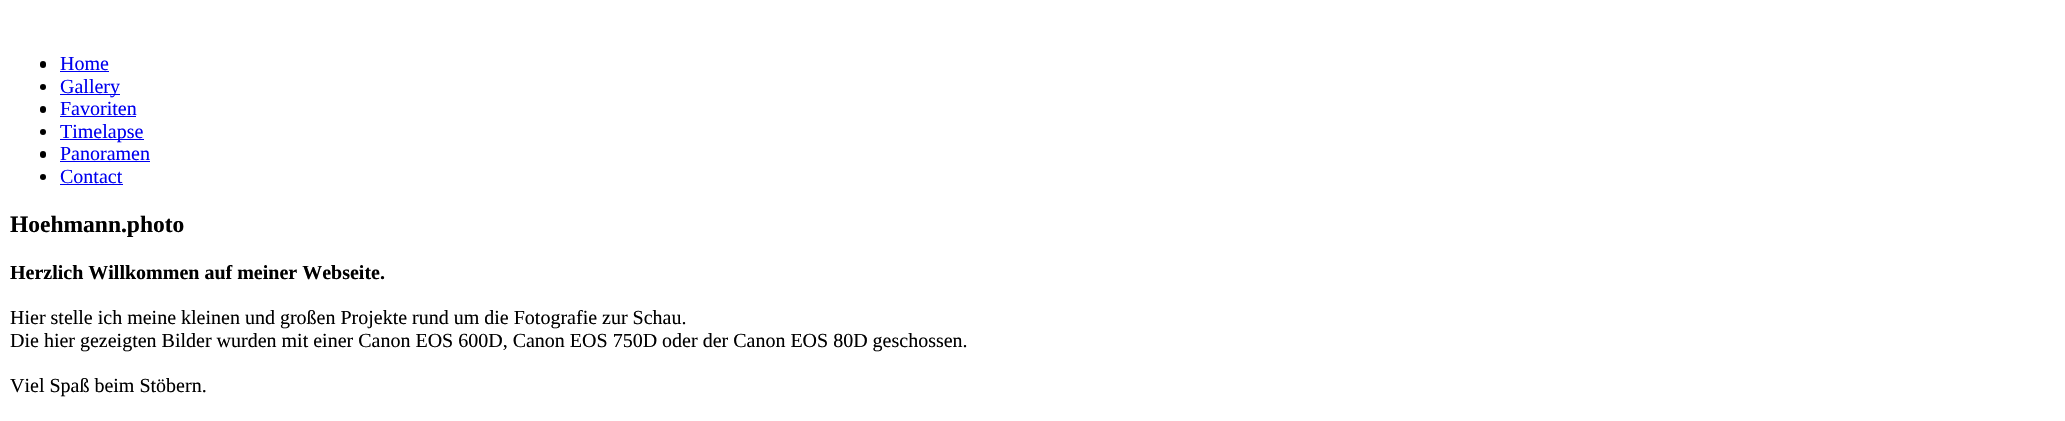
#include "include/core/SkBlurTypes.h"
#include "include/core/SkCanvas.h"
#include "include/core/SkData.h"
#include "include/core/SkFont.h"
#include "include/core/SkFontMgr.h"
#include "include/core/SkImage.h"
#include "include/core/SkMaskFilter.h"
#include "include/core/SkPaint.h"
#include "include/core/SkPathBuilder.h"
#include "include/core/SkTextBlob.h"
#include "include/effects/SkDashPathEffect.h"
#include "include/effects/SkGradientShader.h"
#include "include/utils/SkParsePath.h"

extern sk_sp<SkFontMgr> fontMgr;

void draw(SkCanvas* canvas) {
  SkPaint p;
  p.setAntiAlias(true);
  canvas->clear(SK_ColorWHITE);
  p.setColor(SK_ColorBLACK);
  canvas->drawRoundRect(SkRect::MakeLTRB(40, 61, 46, 68), 3, 3, p);
  p.setColor(SkColorSetRGB(0, 0, 238));
  canvas->drawRect(SkRect::MakeLTRB(60, 71, 109, 72), p);
  p.setColor(SK_ColorBLACK);
  canvas->drawCircle(43, 87, 3, p);
  p.setColor(SkColorSetRGB(0, 0, 238));
  canvas->drawRect(SkRect::MakeLTRB(60, 94, 120, 95), p);
  p.setColor(SK_ColorBLACK);
  canvas->drawRoundRect(SkRect::MakeLTRB(40, 106, 46, 113), 3, 3, p);
  p.setColor(SkColorSetRGB(0, 0, 238));
  canvas->drawRect(SkRect::MakeLTRB(60, 116, 136, 117), p);
  p.setColor(SK_ColorBLACK);
  canvas->drawCircle(43, 132, 3, p);
  p.setColor(SkColorSetRGB(0, 0, 238));
  canvas->drawRect(SkRect::MakeLTRB(60, 139, 144, 140), p);
  p.setColor(SK_ColorBLACK);
  canvas->drawRoundRect(SkRect::MakeLTRB(40, 151, 46, 158), 3, 3, p);
  p.setColor(SkColorSetRGB(0, 0, 238));
  canvas->drawRect(SkRect::MakeLTRB(60, 161, 150, 162), p);
  p.setColor(SK_ColorBLACK);
  canvas->drawCircle(43, 177, 3, p);
  p.setColor(SkColorSetRGB(0, 0, 238));
  canvas->drawRect(SkRect::MakeLTRB(60, 184, 123, 185), p);
  SkFont font1(fontMgr->matchFamilyStyle("Liberation Serif", SkFontStyle::Normal()), 20);
  font1.setSubpixel(true);
  canvas->drawString("Home", 60, 70, font1, p);
  canvas->drawString("Gallery", 60, 93, font1, p);
  canvas->drawString("Favoriten", 60, 115, font1, p);
  canvas->drawString("Timelapse", 60, 138, font1, p);
  canvas->drawString("Panoramen", 60, 160, font1, p);
  canvas->drawString("Contact", 60, 183, font1, p);
  SkFont font2(fontMgr->matchFamilyStyle("Liberation Serif", SkFontStyle::Bold()), 23.5f);
  font2.setSubpixel(true);
  p.setColor(SK_ColorBLACK);
  canvas->drawString("Hoehmann.photo", 10, 232, font2, p);
  SkFont font3(fontMgr->matchFamilyStyle("Liberation Serif", SkFontStyle::Bold()), 20);
  font3.setSubpixel(true);
  canvas->drawString("Herzlich Willkommen auf meiner Webseite.", 10, 279, font3, p);
  canvas->drawString("Hier stelle ich meine kleinen und großen Projekte rund um die Fotografie zur Schau.", 10, 324, font1, p);
  canvas->drawString("Die hier gezeigten Bilder wurden mit einer Canon EOS 600D, Canon EOS 750D oder der Canon EOS 80D geschossen.", 10, 347, font1, p);
  canvas->drawString("Viel Spaß beim Stöbern.", 10, 392, font1, p);
}
